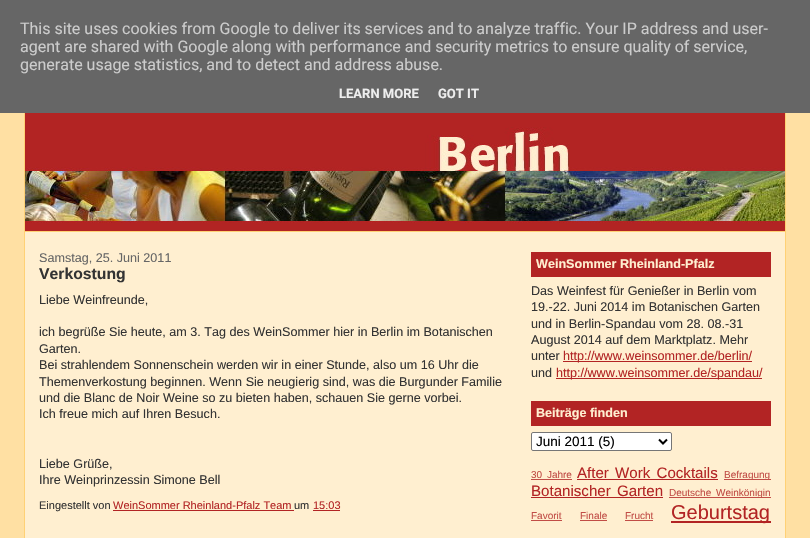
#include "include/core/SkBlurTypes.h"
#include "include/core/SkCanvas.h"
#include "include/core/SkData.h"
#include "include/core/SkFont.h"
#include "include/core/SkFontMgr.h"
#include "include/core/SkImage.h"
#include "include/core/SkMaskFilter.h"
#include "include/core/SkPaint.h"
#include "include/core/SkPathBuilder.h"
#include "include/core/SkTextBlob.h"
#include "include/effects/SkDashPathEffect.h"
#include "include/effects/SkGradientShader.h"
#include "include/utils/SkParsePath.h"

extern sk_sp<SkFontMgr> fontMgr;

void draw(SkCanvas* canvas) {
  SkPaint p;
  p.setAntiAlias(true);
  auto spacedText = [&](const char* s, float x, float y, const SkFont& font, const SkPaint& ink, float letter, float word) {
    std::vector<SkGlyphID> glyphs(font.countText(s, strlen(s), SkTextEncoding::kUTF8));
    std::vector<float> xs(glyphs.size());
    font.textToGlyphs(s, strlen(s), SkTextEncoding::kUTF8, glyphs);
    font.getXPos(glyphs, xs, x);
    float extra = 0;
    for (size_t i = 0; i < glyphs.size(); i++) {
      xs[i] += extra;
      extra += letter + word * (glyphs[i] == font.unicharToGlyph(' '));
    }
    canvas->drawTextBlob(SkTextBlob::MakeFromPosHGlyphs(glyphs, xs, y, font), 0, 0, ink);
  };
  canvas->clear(SkColorSetRGB(255, 224, 163));
  p.setColor(SkColorSetRGB(102, 102, 102));
  canvas->drawRect(SkRect::MakeLTRB(0, 0, 810, 113), p);
  p.setColor(SkColorSetRGB(255, 209, 117));
  canvas->drawRect(SkRect::MakeLTRB(24, 113, 786, 232), p);
  canvas->drawImageRect(SkImages::DeferredFromEncodedData(SkData::MakeFromFileName("images/1.png")), SkRect::MakeLTRB(25, 113, 785, 231), SkSamplingOptions());
  p.setColor(SkColorSetRGB(255, 239, 208));
  canvas->drawRect(SkRect::MakeLTRB(25, 232, 785, 538), p);
  p.setColor(SkColorSetRGB(255, 209, 117));
  canvas->drawRect(SkRect::MakeLTRB(785, 232, 786, 538), p);
  canvas->drawRect(SkRect::MakeLTRB(24, 232, 25, 538), p);
  p.setColor(SkColorSetRGB(178, 36, 36));
  canvas->drawRect(SkRect::MakeLTRB(113, 510, 294, 511), p);
  canvas->drawRect(SkRect::MakeLTRB(313, 510, 340, 511), p);
  canvas->drawRect(SkRect::MakeLTRB(531, 252, 771, 277), p);
  canvas->drawRect(SkRect::MakeLTRB(563, 361, 752, 362), p);
  canvas->drawRect(SkRect::MakeLTRB(556, 378, 762, 379), p);
  canvas->drawRect(SkRect::MakeLTRB(531, 401, 771, 426), p);
  p.setColor(SK_ColorWHITE);
  canvas->drawRoundRect(SkRect::MakeLTRB(531.5f, 432.5f, 671.5f, 450.5f), 1.5f, 1.5f, p);
  p.setStyle(SkPaint::kStroke_Style);
  p.setStrokeWidth(1);
  p.setColor(SkColorSetRGB(118, 118, 118));
  canvas->drawRoundRect(SkRect::MakeLTRB(531.5f, 432.5f, 671.5f, 450.5f), 1.5f, 1.5f, p);
  p.setStrokeWidth(2);
  p.setColor(SK_ColorBLACK);
  canvas->drawPath(SkPathBuilder().moveTo(659, 439.5f).lineTo(663, 443.5f).lineTo(667, 439.5f).detach(), p);
  p.setStyle(SkPaint::kFill_Style);
  p.setColor(SkColorSetRGB(193, 77, 70));
  canvas->drawRect(SkRect::MakeLTRB(531, 479, 572, 480), p);
  p.setColor(SkColorSetRGB(178, 36, 36));
  canvas->drawRect(SkRect::MakeLTRB(577, 479, 718, 480), p);
  p.setColor(SkColorSetRGB(193, 77, 70));
  canvas->drawRect(SkRect::MakeLTRB(724, 479, 771, 480), p);
  p.setColor(SkColorSetRGB(178, 36, 36));
  canvas->drawRect(SkRect::MakeLTRB(531, 497, 663, 498), p);
  p.setColor(SkColorSetRGB(193, 77, 70));
  canvas->drawRect(SkRect::MakeLTRB(669, 497, 771, 498), p);
  canvas->drawRect(SkRect::MakeLTRB(531, 520, 562, 521), p);
  canvas->drawRect(SkRect::MakeLTRB(580, 520, 607, 521), p);
  canvas->drawRect(SkRect::MakeLTRB(625, 520, 653, 521), p);
  p.setColor(SkColorSetRGB(178, 36, 36));
  canvas->drawRect(SkRect::MakeLTRB(671, 521, 771, 523), p);
  SkFont font1(fontMgr->matchFamilyStyle("Roboto", SkFontStyle::Normal()), 16);
  font1.setSubpixel(true);
  p.setColor(SkColorSetRGB(204, 204, 204));
  canvas->drawString("This site uses cookies from Google to deliver its services and to analyze traffic. Your IP address and user-", 20, 34, font1, p);
  canvas->drawString("agent are shared with Google along with performance and security metrics to ensure quality of service,", 20, 52, font1, p);
  canvas->drawString("generate usage statistics, and to detect and address abuse.", 20, 70, font1, p);
  SkFont font2(fontMgr->matchFamilyStyle("Roboto", SkFontStyle::Bold()), 13);
  font2.setSubpixel(true);
  p.setColor(SkColorSetRGB(238, 238, 238));
  canvas->drawString("LEARN MORE", 339, 98, font2, p);
  canvas->drawString("GOT IT", 438, 98, font2, p);
  SkFont font3(fontMgr->matchFamilyStyle("Liberation Sans", SkFontStyle::Normal()), 12.6f);
  font3.setSubpixel(true);
  p.setColor(SkColorSetRGB(102, 102, 102));
  canvas->drawString("Samstag, 25. Juni 2011", 39, 262, font3, p);
  SkFont font4(fontMgr->matchFamilyStyle("Liberation Sans", SkFontStyle::Bold()), 15.75f);
  font4.setSubpixel(true);
  p.setColor(SkColorSetRGB(51, 51, 51));
  canvas->drawString("Verkostung", 39, 279, font4, p);
  canvas->drawString("Liebe Weinfreunde,", 39, 304, font3, p);
  canvas->drawString("ich begrüße Sie heute, am 3. Tag des WeinSommer hier in Berlin im Botanischen", 39, 336, font3, p);
  canvas->drawString("Garten.", 39, 353, font3, p);
  canvas->drawString("Bei strahlendem Sonnenschein werden wir in einer Stunde, also um 16 Uhr die", 39, 369, font3, p);
  canvas->drawString("Themenverkostung beginnen. Wenn Sie neugierig sind, was die Burgunder Familie", 39, 386, font3, p);
  canvas->drawString("und die Blanc de Noir Weine so zu bieten haben, schauen Sie gerne vorbei.", 39, 402, font3, p);
  canvas->drawString("Ich freue mich auf Ihren Besuch.", 39, 418, font3, p);
  canvas->drawString("Liebe Grüße,", 39, 468, font3, p);
  canvas->drawString("Ihre Weinprinzessin Simone Bell", 39, 484, font3, p);
  SkFont font5(fontMgr->matchFamilyStyle("Liberation Sans", SkFontStyle::Normal()), 11);
  font5.setSubpixel(true);
  canvas->drawString("Eingestellt von", 39, 509, font5, p);
  p.setColor(SkColorSetRGB(178, 36, 36));
  canvas->drawString("WeinSommer Rheinland-Pfalz Team", 113, 509, font5, p);
  p.setColor(SkColorSetRGB(51, 51, 51));
  canvas->drawString("um", 294, 509, font5, p);
  p.setColor(SkColorSetRGB(178, 36, 36));
  canvas->drawString("15:03", 313, 509, font5, p);
  SkFont font6(fontMgr->matchFamilyStyle("Liberation Sans", SkFontStyle::Bold()), 12.6f);
  font6.setSubpixel(true);
  p.setColor(SkColorSetRGB(255, 239, 208));
  canvas->drawString("WeinSommer Rheinland-Pfalz", 536, 268, font6, p);
  p.setColor(SkColorSetRGB(51, 51, 51));
  canvas->drawString("Das Weinfest für Genießer in Berlin vom", 531, 295, font3, p);
  canvas->drawString("19.-22. Juni 2014 im Botanischen Garten", 531, 311, font3, p);
  canvas->drawString("und in Berlin-Spandau vom 28. 08.-31", 531, 328, font3, p);
  canvas->drawString("August 2014 auf dem Marktplatz. Mehr", 531, 344, font3, p);
  canvas->drawString("unter", 531, 360, font3, p);
  p.setColor(SkColorSetRGB(178, 36, 36));
  canvas->drawString("http://www.weinsommer.de/berlin/", 563, 360, font3, p);
  p.setColor(SkColorSetRGB(51, 51, 51));
  canvas->drawString("und", 531, 377, font3, p);
  p.setColor(SkColorSetRGB(178, 36, 36));
  canvas->drawString("http://www.weinsommer.de/spandau/", 556, 377, font3, p);
  p.setColor(SkColorSetRGB(255, 239, 208));
  canvas->drawString("Beiträge finden", 536, 417, font6, p);
  SkFont font7(fontMgr->matchFamilyStyle("Liberation Sans", SkFontStyle::Normal()), 13.5f);
  font7.setSubpixel(true);
  p.setColor(SK_ColorBLACK);
  canvas->drawString("Juni 2011 (5)", 536, 446, font7, p);
  SkFont font8(fontMgr->matchFamilyStyle("Liberation Sans", SkFontStyle::Normal()), 10);
  font8.setSubpixel(true);
  p.setColor(SkColorSetRGB(193, 77, 70));
  spacedText("30 Jahre", 531, 478, font8, p, 0, 2);
  SkFont font9(fontMgr->matchFamilyStyle("Liberation Sans", SkFontStyle::Normal()), 15.1f);
  font9.setSubpixel(true);
  p.setColor(SkColorSetRGB(178, 36, 36));
  spacedText("After Work Cocktails", 577, 478, font9, p, 0, 2);
  p.setColor(SkColorSetRGB(193, 77, 70));
  canvas->drawString("Befragung", 724, 478, font8, p);
  p.setColor(SkColorSetRGB(178, 36, 36));
  spacedText("Botanischer Garten", 531, 496, font9, p, 0, 2);
  p.setColor(SkColorSetRGB(193, 77, 70));
  spacedText("Deutsche Weinkönigin", 669, 496, font8, p, 0, 2);
  canvas->drawString("Favorit", 531, 519, font8, p);
  canvas->drawString("Finale", 580, 519, font8, p);
  canvas->drawString("Frucht", 625, 519, font8, p);
  SkFont font10(fontMgr->matchFamilyStyle("Liberation Sans", SkFontStyle::Normal()), 20);
  font10.setSubpixel(true);
  p.setColor(SkColorSetRGB(178, 36, 36));
  canvas->drawString("Geburtstag", 671, 519, font10, p);
}
